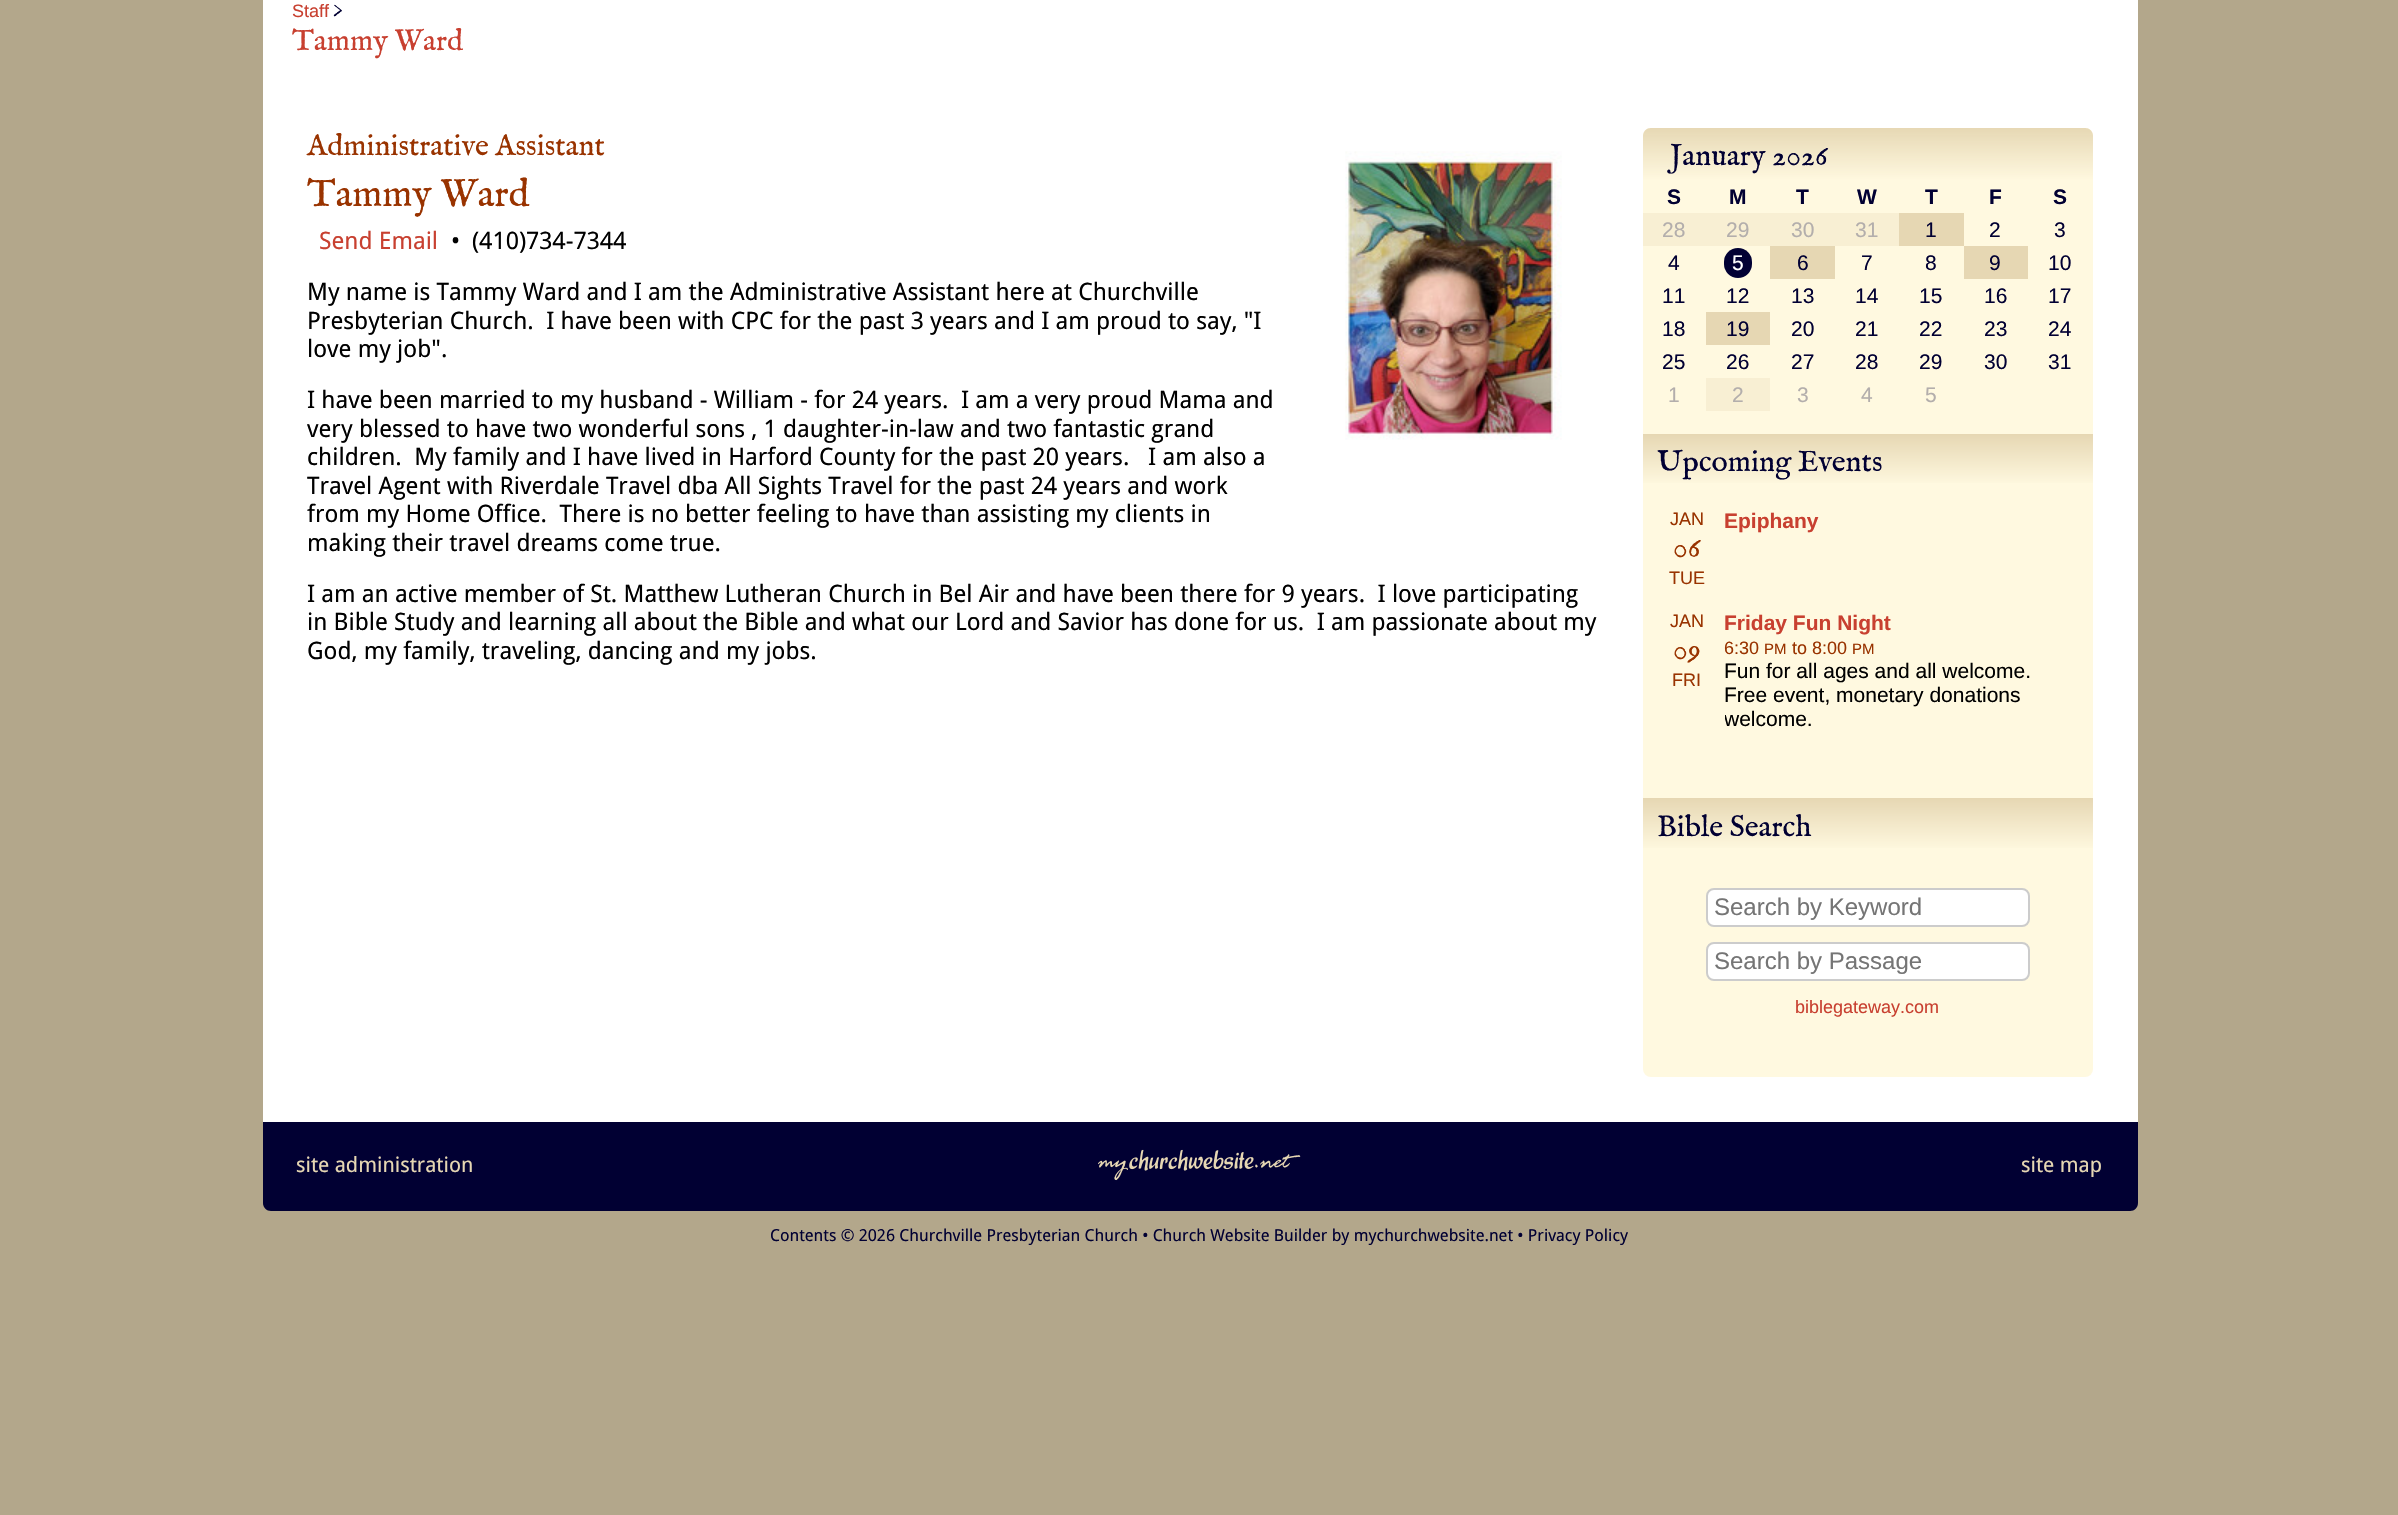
#include "include/core/SkBlurTypes.h"
#include "include/core/SkCanvas.h"
#include "include/core/SkData.h"
#include "include/core/SkFont.h"
#include "include/core/SkFontMgr.h"
#include "include/core/SkImage.h"
#include "include/core/SkMaskFilter.h"
#include "include/core/SkPaint.h"
#include "include/core/SkPathBuilder.h"
#include "include/core/SkTextBlob.h"
#include "include/effects/SkDashPathEffect.h"
#include "include/effects/SkGradientShader.h"
#include "include/utils/SkParsePath.h"

extern sk_sp<SkFontMgr> fontMgr;

void draw(SkCanvas* canvas) {
  SkPaint p;
  p.setAntiAlias(true);
  canvas->clear(SkColorSetRGB(179, 167, 139));
  p.setColor(SK_ColorWHITE);
  canvas->drawRect(SkRect::MakeLTRB(263, 0, 2138, 1122), p);
  canvas->drawImageRect(SkImages::DeferredFromEncodedData(SkData::MakeFromFileName("images/1.png")), SkRect::MakeLTRB(1345, 151, 1562, 440), SkSamplingOptions());
  p.setColor(SkColorSetRGB(255, 249, 224));
  canvas->drawRoundRect(SkRect::MakeLTRB(1643, 128, 2093, 1077), 8, 8, p);
  {
    const SkColor colors[] = {SkColorSetRGB(230, 215, 179), SkColorSetARGB(3, 230, 215, 179)};
    const float stops[] = {0, 1};
    const SkPoint ends[] = {{1868, 127}, {1868, 180}};
    p.setShader(SkGradientShader::MakeLinear(ends, colors, stops, 2, SkTileMode::kClamp));
    p.setAlpha(255);
  }
  canvas->drawPath(SkPathBuilder().moveTo(1651, 128).lineTo(2085, 128).cubicTo(2089.5f, 128, 2093, 131.5f, 2093, 136).lineTo(2093, 180).lineTo(1643, 180).lineTo(1643, 136).cubicTo(1643, 131.5f, 1646.5f, 128, 1651, 128).close().detach(), p);
  p.setShader(nullptr);
  p.setColor(SkColorSetRGB(248, 239, 211));
  canvas->drawRect(SkRect::MakeLTRB(1643, 213, 1899, 246), p);
  p.setColor(SkColorSetRGB(230, 215, 179));
  canvas->drawRect(SkRect::MakeLTRB(1899, 213, 1964, 246), p);
  p.setColor(SkColorSetRGB(1, 0, 51));
  canvas->drawRoundRect(SkRect::MakeLTRB(1724, 248, 1752, 278), 14, 14, p);
  p.setColor(SkColorSetRGB(230, 215, 179));
  canvas->drawRect(SkRect::MakeLTRB(1770, 246, 1835, 279), p);
  canvas->drawRect(SkRect::MakeLTRB(1964, 246, 2028, 279), p);
  canvas->drawRect(SkRect::MakeLTRB(1706, 312, 1770, 345), p);
  p.setColor(SkColorSetRGB(248, 239, 211));
  canvas->drawRect(SkRect::MakeLTRB(1706, 378, 1770, 411), p);
  {
    const SkColor colors[] = {SkColorSetRGB(230, 215, 179), SkColorSetRGB(255, 249, 224)};
    const float stops[] = {0, 1};
    const SkPoint ends[] = {{1868, 434}, {1868, 486}};
    p.setShader(SkGradientShader::MakeLinear(ends, colors, stops, 2, SkTileMode::kClamp));
    p.setAlpha(255);
  }
  canvas->drawRect(SkRect::MakeLTRB(1643, 434, 2093, 483), p);
  {
    const SkColor colors[] = {SkColorSetRGB(230, 215, 179), SkColorSetRGB(255, 249, 224)};
    const float stops[] = {0, 1};
    const SkPoint ends[] = {{1868, 798}, {1868, 851}};
    p.setShader(SkGradientShader::MakeLinear(ends, colors, stops, 2, SkTileMode::kClamp));
    p.setAlpha(255);
  }
  canvas->drawRect(SkRect::MakeLTRB(1643, 798, 2093, 848), p);
  p.setShader(nullptr);
  p.setColor(SK_ColorWHITE);
  canvas->drawRoundRect(SkRect::MakeLTRB(1707, 889, 2029, 926), 7, 7, p);
  p.setStyle(SkPaint::kStroke_Style);
  p.setStrokeWidth(2);
  p.setColor(SkColorSetRGB(204, 204, 204));
  canvas->drawRoundRect(SkRect::MakeLTRB(1707, 889, 2029, 926), 7, 7, p);
  p.setStyle(SkPaint::kFill_Style);
  p.setColor(SK_ColorWHITE);
  canvas->drawRoundRect(SkRect::MakeLTRB(1707, 943, 2029, 980), 7, 7, p);
  p.setStyle(SkPaint::kStroke_Style);
  p.setColor(SkColorSetRGB(204, 204, 204));
  canvas->drawRoundRect(SkRect::MakeLTRB(1707, 943, 2029, 980), 7, 7, p);
  p.setStyle(SkPaint::kFill_Style);
  p.setColor(SkColorSetRGB(1, 0, 51));
  canvas->drawPath(SkPathBuilder().moveTo(263, 1122).lineTo(2138, 1122).lineTo(2138, 1203).cubicTo(2138, 1207.5f, 2134.5f, 1211, 2130, 1211).lineTo(271, 1211).cubicTo(266.5f, 1211, 263, 1207.5f, 263, 1203).close().detach(), p);
  canvas->drawImageRect(SkImages::DeferredFromEncodedData(SkData::MakeFromFileName("images/2.png")), SkRect::MakeLTRB(1098, 1149, 1301, 1181), SkSamplingOptions());
  SkFont font1(fontMgr->matchFamilyStyle("Liberation Sans", SkFontStyle::Normal()), 18);
  font1.setSubpixel(true);
  p.setColor(SkColorSetRGB(200, 64, 48));
  canvas->drawString("Staff", 292, 17, font1, p);
  SkFont font2(fontMgr->matchFamilyStyle("IM FELL English", SkFontStyle::Normal()), 18);
  font2.setSubpixel(true);
  p.setColor(SkColorSetRGB(1, 0, 51));
  canvas->drawString(">", 333, 17, font2, p);
  SkFont font3(fontMgr->matchFamilyStyle("IM FELL English", SkFontStyle::Normal()), 30);
  font3.setSubpixel(true);
  p.setColor(SkColorSetRGB(200, 64, 48));
  canvas->drawString("Tammy Ward", 292, 50, font3, p);
  p.setColor(SkColorSetRGB(153, 51, 0));
  canvas->drawString("Administrative Assistant", 307, 155, font3, p);
  SkFont font4(fontMgr->matchFamilyStyle("IM FELL English", SkFontStyle::Normal()), 39);
  font4.setSubpixel(true);
  canvas->drawString("Tammy Ward", 307, 206, font4, p);
  SkFont font5(fontMgr->matchFamilyStyle("Droid Sans", SkFontStyle::Normal()), 24);
  font5.setSubpixel(true);
  p.setColor(SkColorSetRGB(200, 64, 48));
  canvas->drawString("Send Email", 319, 249, font5, p);
  p.setColor(SK_ColorBLACK);
  canvas->drawString("•", 451, 249, font5, p);
  canvas->drawString("(410)734-7344", 472, 249, font5, p);
  canvas->drawString("My name is Tammy Ward and I am the Administrative Assistant here at Churchville", 307, 300, font5, p);
  canvas->drawString("Presbyterian Church.  I have been with CPC for the past 3 years and I am proud to say, \"I", 307, 329, font5, p);
  canvas->drawString("love my job\".", 307, 357, font5, p);
  canvas->drawString("I have been married to my husband - William - for 24 years.  I am a very proud Mama and", 307, 408, font5, p);
  canvas->drawString("very blessed to have two wonderful sons , 1 daughter-in-law and two fantastic grand", 307, 437, font5, p);
  canvas->drawString("children.  My family and I have lived in Harford County for the past 20 years.   I am also a", 307, 465, font5, p);
  canvas->drawString("Travel Agent with Riverdale Travel dba All Sights Travel for the past 24 years and work", 307, 494, font5, p);
  canvas->drawString("from my Home Office.  There is no better feeling to have than assisting my clients in", 307, 522, font5, p);
  canvas->drawString("making their travel dreams come true.", 307, 551, font5, p);
  canvas->drawString("I am an active member of St. Matthew Lutheran Church in Bel Air and have been there for 9 years.  I love participating", 307, 602, font5, p);
  canvas->drawString("in Bible Study and learning all about the Bible and what our Lord and Savior has done for us.  I am passionate about my", 307, 630, font5, p);
  canvas->drawString("God, my family, traveling, dancing and my jobs.", 307, 659, font5, p);
  p.setColor(SkColorSetRGB(1, 0, 51));
  canvas->drawString("January 2026", 1670, 165, font3, p);
  SkFont font6(fontMgr->matchFamilyStyle("Liberation Sans", SkFontStyle::Bold()), 21);
  font6.setSubpixel(true);
  canvas->drawString("S", 1667, 204, font6, p);
  canvas->drawString("M", 1729, 204, font6, p);
  canvas->drawString("T", 1796, 204, font6, p);
  canvas->drawString("W", 1857, 204, font6, p);
  canvas->drawString("T", 1925, 204, font6, p);
  canvas->drawString("F", 1989, 204, font6, p);
  canvas->drawString("S", 2053, 204, font6, p);
  SkFont font7(fontMgr->matchFamilyStyle("Liberation Sans", SkFontStyle::Normal()), 21);
  font7.setSubpixel(true);
  p.setColor(SkColorSetRGB(179, 174, 172));
  canvas->drawString("28", 1662, 237, font7, p);
  canvas->drawString("29", 1726, 237, font7, p);
  canvas->drawString("30", 1791, 237, font7, p);
  canvas->drawString("31", 1855, 237, font7, p);
  p.setColor(SkColorSetRGB(1, 0, 51));
  canvas->drawString("1", 1925, 237, font7, p);
  canvas->drawString("2", 1989, 237, font7, p);
  canvas->drawString("3", 2054, 237, font7, p);
  canvas->drawString("4", 1668, 270, font7, p);
  p.setColor(SK_ColorWHITE);
  canvas->drawString("5", 1732, 270, font7, p);
  p.setColor(SkColorSetRGB(1, 0, 51));
  canvas->drawString("6", 1797, 270, font7, p);
  canvas->drawString("7", 1861, 270, font7, p);
  canvas->drawString("8", 1925, 270, font7, p);
  canvas->drawString("9", 1989, 270, font7, p);
  canvas->drawString("10", 2048, 270, font7, p);
  canvas->drawString("11", 1662, 303, font7, p);
  canvas->drawString("12", 1726, 303, font7, p);
  canvas->drawString("13", 1791, 303, font7, p);
  canvas->drawString("14", 1855, 303, font7, p);
  canvas->drawString("15", 1919, 303, font7, p);
  canvas->drawString("16", 1984, 303, font7, p);
  canvas->drawString("17", 2048, 303, font7, p);
  canvas->drawString("18", 1662, 336, font7, p);
  canvas->drawString("19", 1726, 336, font7, p);
  canvas->drawString("20", 1791, 336, font7, p);
  canvas->drawString("21", 1855, 336, font7, p);
  canvas->drawString("22", 1919, 336, font7, p);
  canvas->drawString("23", 1984, 336, font7, p);
  canvas->drawString("24", 2048, 336, font7, p);
  canvas->drawString("25", 1662, 369, font7, p);
  canvas->drawString("26", 1726, 369, font7, p);
  canvas->drawString("27", 1791, 369, font7, p);
  canvas->drawString("28", 1855, 369, font7, p);
  canvas->drawString("29", 1919, 369, font7, p);
  canvas->drawString("30", 1984, 369, font7, p);
  canvas->drawString("31", 2048, 369, font7, p);
  p.setColor(SkColorSetRGB(179, 174, 172));
  canvas->drawString("1", 1668, 402, font7, p);
  canvas->drawString("2", 1732, 402, font7, p);
  canvas->drawString("3", 1797, 402, font7, p);
  canvas->drawString("4", 1861, 402, font7, p);
  canvas->drawString("5", 1925, 402, font7, p);
  p.setColor(SkColorSetRGB(1, 0, 51));
  canvas->drawString("Upcoming Events", 1657, 471, font3, p);
  p.setColor(SkColorSetRGB(153, 51, 0));
  canvas->drawString("JAN", 1670, 525, font1, p);
  canvas->drawString("06", 1673, 557, font3, p);
  canvas->drawString("TUE", 1669, 584, font1, p);
  p.setColor(SkColorSetRGB(200, 64, 48));
  canvas->drawString("Epiphany", 1724, 528, font6, p);
  p.setColor(SkColorSetRGB(153, 51, 0));
  canvas->drawString("JAN", 1670, 627, font1, p);
  canvas->drawString("09", 1673, 659, font3, p);
  canvas->drawString("FRI", 1672, 686, font1, p);
  p.setColor(SkColorSetRGB(200, 64, 48));
  canvas->drawString("Friday Fun Night", 1724, 630, font6, p);
  p.setColor(SkColorSetRGB(153, 51, 0));
  canvas->drawString("6:30", 1724, 654, font1, p);
  SkFont font8(fontMgr->matchFamilyStyle("Liberation Sans", SkFontStyle::Normal()), 15);
  font8.setSubpixel(true);
  canvas->drawString("PM", 1764, 654, font8, p);
  canvas->drawString("to 8:00", 1792, 654, font1, p);
  canvas->drawString("PM", 1852, 654, font8, p);
  p.setColor(SK_ColorBLACK);
  canvas->drawString("Fun for all ages and all welcome.", 1724, 678, font7, p);
  canvas->drawString("Free event, monetary donations", 1724, 702, font7, p);
  canvas->save();
  canvas->clipRect(SkRect::MakeLTRB(1725, 611, 2070, 738));
  canvas->drawString("welcome.", 1724, 726, font7, p);
  canvas->restore();
  p.setColor(SkColorSetRGB(1, 0, 51));
  canvas->drawString("Bible Search", 1657, 836, font3, p);
  SkFont font9(fontMgr->matchFamilyStyle("Liberation Sans", SkFontStyle::Normal()), 24);
  font9.setSubpixel(true);
  p.setColor(SkColorSetRGB(117, 117, 117));
  canvas->drawString("Search by Keyword", 1714, 915, font9, p);
  canvas->drawString("Search by Passage", 1714, 969, font9, p);
  p.setColor(SkColorSetRGB(200, 64, 48));
  canvas->drawString("biblegateway.com", 1795, 1013, font1, p);
  SkFont font10(fontMgr->matchFamilyStyle("Droid Sans", SkFontStyle::Normal()), 21);
  font10.setSubpixel(true);
  p.setColor(SkColorSetRGB(230, 215, 179));
  canvas->drawString("site administration", 296, 1172, font10, p);
  canvas->drawString("site map", 2021, 1172, font10, p);
  SkFont font11(fontMgr->matchFamilyStyle("Droid Sans", SkFontStyle::Normal()), 16.5f);
  font11.setSubpixel(true);
  p.setColor(SkColorSetRGB(1, 0, 51));
  canvas->drawString("Contents © 2026 Churchville Presbyterian Church • Church Website Builder by mychurchwebsite.net • Privacy Policy", 770, 1241, font11, p);
}
